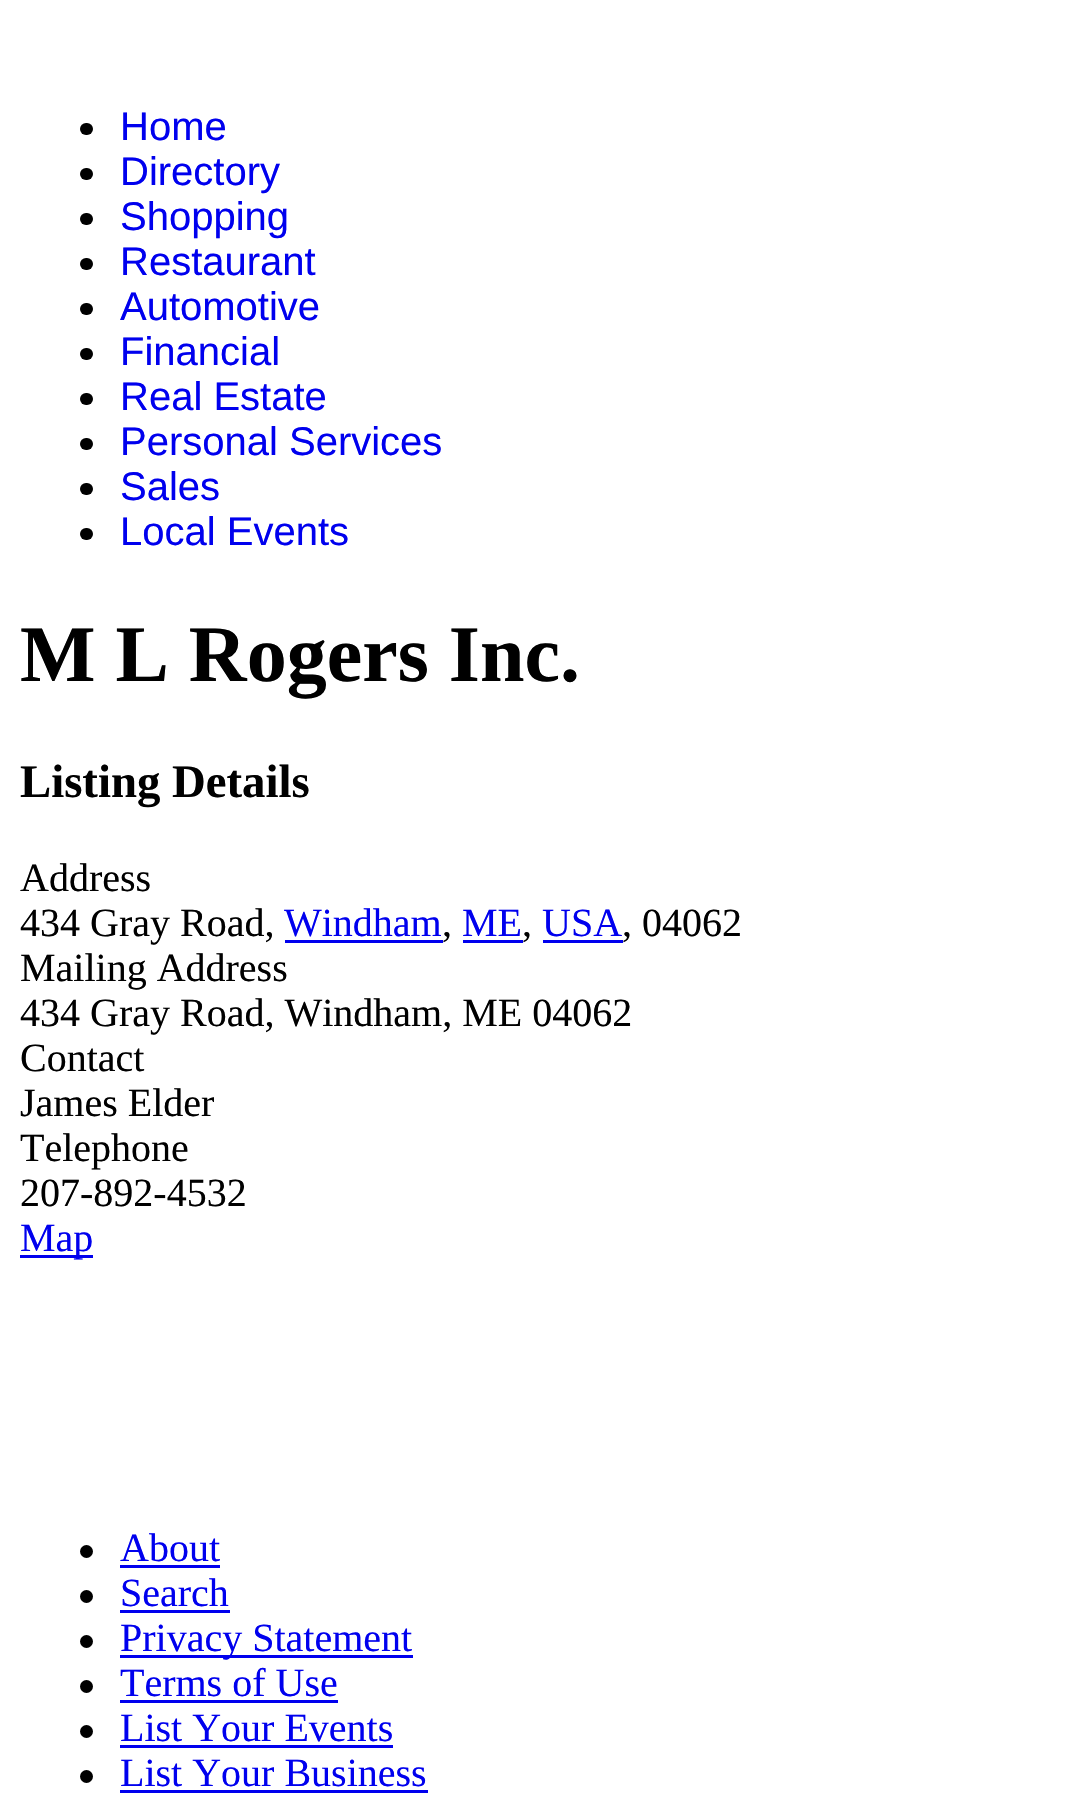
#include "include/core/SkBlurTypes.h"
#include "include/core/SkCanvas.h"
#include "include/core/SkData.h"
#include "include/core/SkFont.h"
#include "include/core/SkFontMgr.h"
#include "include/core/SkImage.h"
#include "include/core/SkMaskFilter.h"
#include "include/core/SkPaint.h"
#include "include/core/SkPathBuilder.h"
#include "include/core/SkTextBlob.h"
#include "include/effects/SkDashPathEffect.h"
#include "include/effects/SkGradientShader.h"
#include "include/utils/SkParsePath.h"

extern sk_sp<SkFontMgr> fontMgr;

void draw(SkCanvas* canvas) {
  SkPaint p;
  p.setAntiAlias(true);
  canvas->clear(SK_ColorWHITE);
  p.setColor(SK_ColorBLACK);
  canvas->drawRoundRect(SkRect::MakeLTRB(80, 123, 93, 135), 6, 6, p);
  canvas->drawRoundRect(SkRect::MakeLTRB(80, 168, 93, 180), 6, 6, p);
  canvas->drawRoundRect(SkRect::MakeLTRB(80, 213, 93, 225), 6, 6, p);
  canvas->drawRoundRect(SkRect::MakeLTRB(80, 258, 93, 270), 6, 6, p);
  canvas->drawRoundRect(SkRect::MakeLTRB(80, 303, 93, 315), 6, 6, p);
  canvas->drawRoundRect(SkRect::MakeLTRB(80, 348, 93, 360), 6, 6, p);
  canvas->drawRoundRect(SkRect::MakeLTRB(80, 393, 93, 405), 6, 6, p);
  canvas->drawRoundRect(SkRect::MakeLTRB(80, 438, 93, 450), 6, 6, p);
  canvas->drawRoundRect(SkRect::MakeLTRB(80, 483, 93, 495), 6, 6, p);
  canvas->drawRoundRect(SkRect::MakeLTRB(80, 528, 93, 540), 6, 6, p);
  p.setColor(SkColorSetRGB(0, 0, 238));
  canvas->drawRect(SkRect::MakeLTRB(285, 940, 443, 943), p);
  canvas->drawRect(SkRect::MakeLTRB(463, 940, 523, 943), p);
  canvas->drawRect(SkRect::MakeLTRB(543, 940, 623, 943), p);
  canvas->drawRect(SkRect::MakeLTRB(20, 1255, 93, 1258), p);
  p.setColor(SK_ColorBLACK);
  canvas->drawCircle(86.5f, 1551.5f, 6.5f, p);
  p.setColor(SkColorSetRGB(0, 0, 238));
  canvas->drawRect(SkRect::MakeLTRB(120, 1565, 220, 1568), p);
  p.setColor(SK_ColorBLACK);
  canvas->drawCircle(86.5f, 1596.5f, 6.5f, p);
  p.setColor(SkColorSetRGB(0, 0, 238));
  canvas->drawRect(SkRect::MakeLTRB(120, 1610, 230, 1613), p);
  p.setColor(SK_ColorBLACK);
  canvas->drawCircle(86.5f, 1641.5f, 6.5f, p);
  p.setColor(SkColorSetRGB(0, 0, 238));
  canvas->drawRect(SkRect::MakeLTRB(120, 1655, 413, 1658), p);
  p.setColor(SK_ColorBLACK);
  canvas->drawCircle(86.5f, 1686.5f, 6.5f, p);
  p.setColor(SkColorSetRGB(0, 0, 238));
  canvas->drawRect(SkRect::MakeLTRB(120, 1700, 338, 1703), p);
  p.setColor(SK_ColorBLACK);
  canvas->drawCircle(86.5f, 1731.5f, 6.5f, p);
  p.setColor(SkColorSetRGB(0, 0, 238));
  canvas->drawRect(SkRect::MakeLTRB(120, 1745, 393, 1748), p);
  p.setColor(SK_ColorBLACK);
  canvas->drawCircle(86.5f, 1776.5f, 6.5f, p);
  p.setColor(SkColorSetRGB(0, 0, 238));
  canvas->drawRect(SkRect::MakeLTRB(120, 1790, 428, 1793), p);
  SkFont font1(fontMgr->matchFamilyStyle("Liberation Sans", SkFontStyle::Normal()), 40);
  font1.setSubpixel(true);
  canvas->drawString("Home", 120, 140, font1, p);
  canvas->drawString("Directory", 120, 185, font1, p);
  canvas->drawString("Shopping", 120, 230, font1, p);
  canvas->drawString("Restaurant", 120, 275, font1, p);
  canvas->drawString("Automotive", 120, 320, font1, p);
  canvas->drawString("Financial", 120, 365, font1, p);
  canvas->drawString("Real Estate", 120, 410, font1, p);
  canvas->drawString("Personal Services", 120, 455, font1, p);
  canvas->drawString("Sales", 120, 500, font1, p);
  canvas->drawString("Local Events", 120, 545, font1, p);
  SkFont font2(fontMgr->matchFamilyStyle("Liberation Serif", SkFontStyle::Bold()), 80);
  font2.setSubpixel(true);
  p.setColor(SK_ColorBLACK);
  canvas->drawString("M L Rogers Inc.", 20, 681, font2, p);
  SkFont font3(fontMgr->matchFamilyStyle("Liberation Serif", SkFontStyle::Bold()), 46.75f);
  font3.setSubpixel(true);
  canvas->drawString("Listing Details", 20, 797, font3, p);
  SkFont font4(fontMgr->matchFamilyStyle("Liberation Serif", SkFontStyle::Normal()), 40);
  font4.setSubpixel(true);
  canvas->drawString("Address", 20, 891, font4, p);
  canvas->drawString("434 Gray Road,", 20, 936, font4, p);
  p.setColor(SkColorSetRGB(0, 0, 238));
  canvas->drawString("Windham", 284, 936, font4, p);
  p.setColor(SK_ColorBLACK);
  canvas->drawString(",", 442, 936, font4, p);
  p.setColor(SkColorSetRGB(0, 0, 238));
  canvas->drawString("ME", 462, 936, font4, p);
  p.setColor(SK_ColorBLACK);
  canvas->drawString(",", 522, 936, font4, p);
  p.setColor(SkColorSetRGB(0, 0, 238));
  canvas->drawString("USA", 542, 936, font4, p);
  p.setColor(SK_ColorBLACK);
  canvas->drawString(", 04062", 622, 936, font4, p);
  canvas->drawString("Mailing Address", 20, 981, font4, p);
  canvas->drawString("434 Gray Road, Windham, ME 04062", 20, 1026, font4, p);
  canvas->drawString("Contact", 20, 1071, font4, p);
  canvas->drawString("James Elder", 20, 1116, font4, p);
  canvas->drawString("Telephone", 20, 1161, font4, p);
  canvas->drawString("207-892-4532", 20, 1206, font4, p);
  p.setColor(SkColorSetRGB(0, 0, 238));
  canvas->drawString("Map", 20, 1251, font4, p);
  canvas->drawString("About", 120, 1561, font4, p);
  canvas->drawString("Search", 120, 1606, font4, p);
  canvas->drawString("Privacy Statement", 120, 1651, font4, p);
  canvas->drawString("Terms of Use", 120, 1696, font4, p);
  canvas->drawString("List Your Events", 120, 1741, font4, p);
  canvas->drawString("List Your Business", 120, 1786, font4, p);
}
